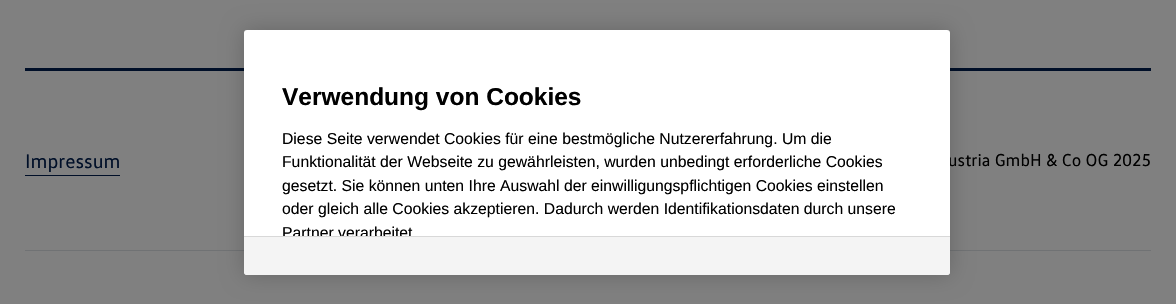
#include "include/core/SkBlurTypes.h"
#include "include/core/SkCanvas.h"
#include "include/core/SkData.h"
#include "include/core/SkFont.h"
#include "include/core/SkFontMgr.h"
#include "include/core/SkImage.h"
#include "include/core/SkMaskFilter.h"
#include "include/core/SkPaint.h"
#include "include/core/SkPathBuilder.h"
#include "include/core/SkTextBlob.h"
#include "include/effects/SkDashPathEffect.h"
#include "include/effects/SkGradientShader.h"
#include "include/utils/SkParsePath.h"

extern sk_sp<SkFontMgr> fontMgr;

void draw(SkCanvas* canvas) {
  SkPaint p;
  p.setAntiAlias(true);
  canvas->clear(SkColorSetRGB(128, 128, 128));
  p.setColor(SkColorSetRGB(0, 15, 40));
  canvas->drawRect(SkRect::MakeLTRB(25, 68, 1151, 71), p);
  p.setColor(SkColorSetRGB(112, 114, 116));
  canvas->drawRect(SkRect::MakeLTRB(25, 250, 1151, 251), p);
  p.setColor(SkColorSetARGB(51, 0, 0, 0));
  p.setMaskFilter(SkMaskFilter::MakeBlur(kNormal_SkBlurStyle, 11));
  canvas->drawRoundRect(SkRect::MakeLTRB(244, 30, 950, 275), 3, 3, p);
  p.setMaskFilter(nullptr);
  p.setColor(SkColorSetRGB(0, 15, 40));
  canvas->drawRect(SkRect::MakeLTRB(25, 175, 120, 176), p);
  SkFont font1(fontMgr->matchFamilyStyle("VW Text", SkFontStyle::Normal()), 20);
  font1.setSubpixel(true);
  canvas->drawString("Impressum", 25, 168, font1, p);
  SkFont font2(fontMgr->matchFamilyStyle("VW Text", SkFontStyle::Normal()), 17.5f);
  font2.setSubpixel(true);
  p.setColor(SK_ColorBLACK);
  canvas->drawString("ustria GmbH & Co OG 2025", 948, 166, font2, p);
  p.setColor(SK_ColorWHITE);
  canvas->drawRoundRect(SkRect::MakeLTRB(244, 30, 950, 275), 3, 3, p);
  SkFont font3(fontMgr->matchFamilyStyle("Liberation Sans", SkFontStyle::Normal()), 15.75f);
  font3.setSubpixel(true);
  p.setColor(SK_ColorBLACK);
  canvas->drawString("Partner verarbeitet", 282, 238, font3, p);
  p.setColor(SkColorSetRGB(244, 244, 244));
  canvas->drawPath(SkPathBuilder().moveTo(244, 236).lineTo(950, 236).lineTo(950, 272).cubicTo(950, 273.5f, 948.5f, 275, 947, 275).lineTo(247, 275).cubicTo(245.5f, 275, 244, 273.5f, 244, 272).close().detach(), p);
  p.setColor(SkColorSetRGB(216, 216, 216));
  canvas->drawRect(SkRect::MakeLTRB(244, 236, 950, 237), p);
  p.setColor(SK_ColorBLACK);
  canvas->drawString("oder gleich alle Cookies akzeptieren. Dadurch werden Identifikationsdaten durch unsere", 282, 214, font3, p);
  canvas->drawString("gesetzt. Sie können unten Ihre Auswahl der einwilligungspflichtigen Cookies einstellen", 282, 191, font3, p);
  canvas->drawString("Funktionalität der Webseite zu gewährleisten, wurden unbedingt erforderliche Cookies", 282, 167, font3, p);
  canvas->drawString("Diese Seite verwendet Cookies für eine bestmögliche Nutzererfahrung. Um die", 282, 144, font3, p);
  SkFont font4(fontMgr->matchFamilyStyle("Liberation Sans", SkFontStyle::Bold()), 24.5f);
  font4.setSubpixel(true);
  canvas->drawString("Verwendung von Cookies", 282, 105, font4, p);
}
